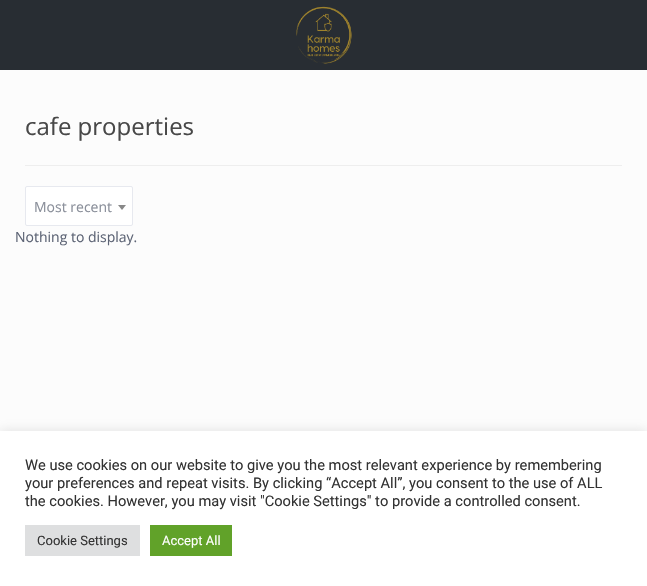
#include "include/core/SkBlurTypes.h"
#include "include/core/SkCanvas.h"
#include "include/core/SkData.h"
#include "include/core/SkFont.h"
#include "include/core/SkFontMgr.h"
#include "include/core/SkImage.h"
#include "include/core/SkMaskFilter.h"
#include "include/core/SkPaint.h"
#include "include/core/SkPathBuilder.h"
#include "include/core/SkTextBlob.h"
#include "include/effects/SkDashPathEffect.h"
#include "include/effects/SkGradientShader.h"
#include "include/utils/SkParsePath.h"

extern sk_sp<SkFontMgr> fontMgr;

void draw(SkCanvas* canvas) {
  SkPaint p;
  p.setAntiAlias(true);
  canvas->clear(SkColorSetRGB(252, 252, 252));
  p.setColor(SkColorSetRGB(40, 45, 51));
  canvas->drawRect(SkRect::MakeLTRB(0, 0, 647, 70), p);
  canvas->drawImageRect(SkImages::DeferredFromEncodedData(SkData::MakeFromFileName("images/1.png")), SkRect::MakeLTRB(296, 6, 352, 64), SkSamplingOptions());
  p.setColor(SkColorSetRGB(238, 238, 238));
  canvas->drawRect(SkRect::MakeLTRB(25, 165, 622, 166), p);
  p.setColor(SK_ColorWHITE);
  canvas->drawRoundRect(SkRect::MakeLTRB(25.5f, 186.5f, 132.5f, 225.5f), 1.5f, 1.5f, p);
  p.setStyle(SkPaint::kStroke_Style);
  p.setStrokeWidth(1);
  p.setColor(SkColorSetRGB(231, 233, 239));
  canvas->drawRoundRect(SkRect::MakeLTRB(25.5f, 186.5f, 132.5f, 225.5f), 1.5f, 1.5f, p);
  p.setStyle(SkPaint::kFill_Style);
  p.setColor(SkColorSetRGB(136, 136, 136));
  canvas->drawPath(SkPathBuilder().moveTo(118, 205).lineTo(126, 205).lineTo(122, 210).close().detach(), p);
  p.setColor(SkColorSetARGB(77, 172, 171, 171));
  p.setMaskFilter(SkMaskFilter::MakeBlur(kNormal_SkBlurStyle, 5));
  canvas->drawRect(SkRect::MakeLTRB(0, 430, 647, 585), p);
  p.setMaskFilter(nullptr);
  p.setColor(SK_ColorWHITE);
  canvas->drawRect(SkRect::MakeLTRB(0, 431, 647, 586), p);
  p.setColor(SkColorSetRGB(222, 223, 224));
  canvas->drawRect(SkRect::MakeLTRB(25, 525, 140, 556), p);
  p.setColor(SkColorSetRGB(97, 162, 41));
  canvas->drawRect(SkRect::MakeLTRB(150, 525, 232, 556), p);
  SkFont font1(fontMgr->matchFamilyStyle("Open Sans", SkFontStyle::Normal()), 24);
  font1.setSubpixel(true);
  p.setColor(SkColorSetRGB(72, 72, 72));
  canvas->drawString("cafe properties", 25, 135, font1, p);
  SkFont font2(fontMgr->matchFamilyStyle("Open Sans", SkFontStyle::Normal()), 14);
  font2.setSubpixel(true);
  p.setColor(SkColorSetRGB(138, 143, 154));
  canvas->drawString("Most recent", 34, 212, font2, p);
  p.setColor(SkColorSetRGB(93, 100, 117));
  canvas->drawString("Nothing to display.", 15, 242, font2, p);
  SkFont font3(fontMgr->matchFamilyStyle("Roboto", SkFontStyle::Normal()), 14.65f);
  font3.setSubpixel(true);
  p.setColor(SkColorSetRGB(51, 51, 51));
  canvas->drawString("We use cookies on our website to give you the most relevant experience by remembering", 25, 470, font3, p);
  canvas->drawString("your preferences and repeat visits. By clicking “Accept All”, you consent to the use of ALL", 25, 488, font3, p);
  canvas->drawString("the cookies. However, you may visit \"Cookie Settings\" to provide a controlled consent.", 25, 506, font3, p);
  SkFont font4(fontMgr->matchFamilyStyle("Roboto", SkFontStyle::Normal()), 13);
  font4.setSubpixel(true);
  canvas->drawString("Cookie Settings", 37, 545, font4, p);
  p.setColor(SK_ColorWHITE);
  canvas->drawString("Accept All", 162, 545, font4, p);
}
